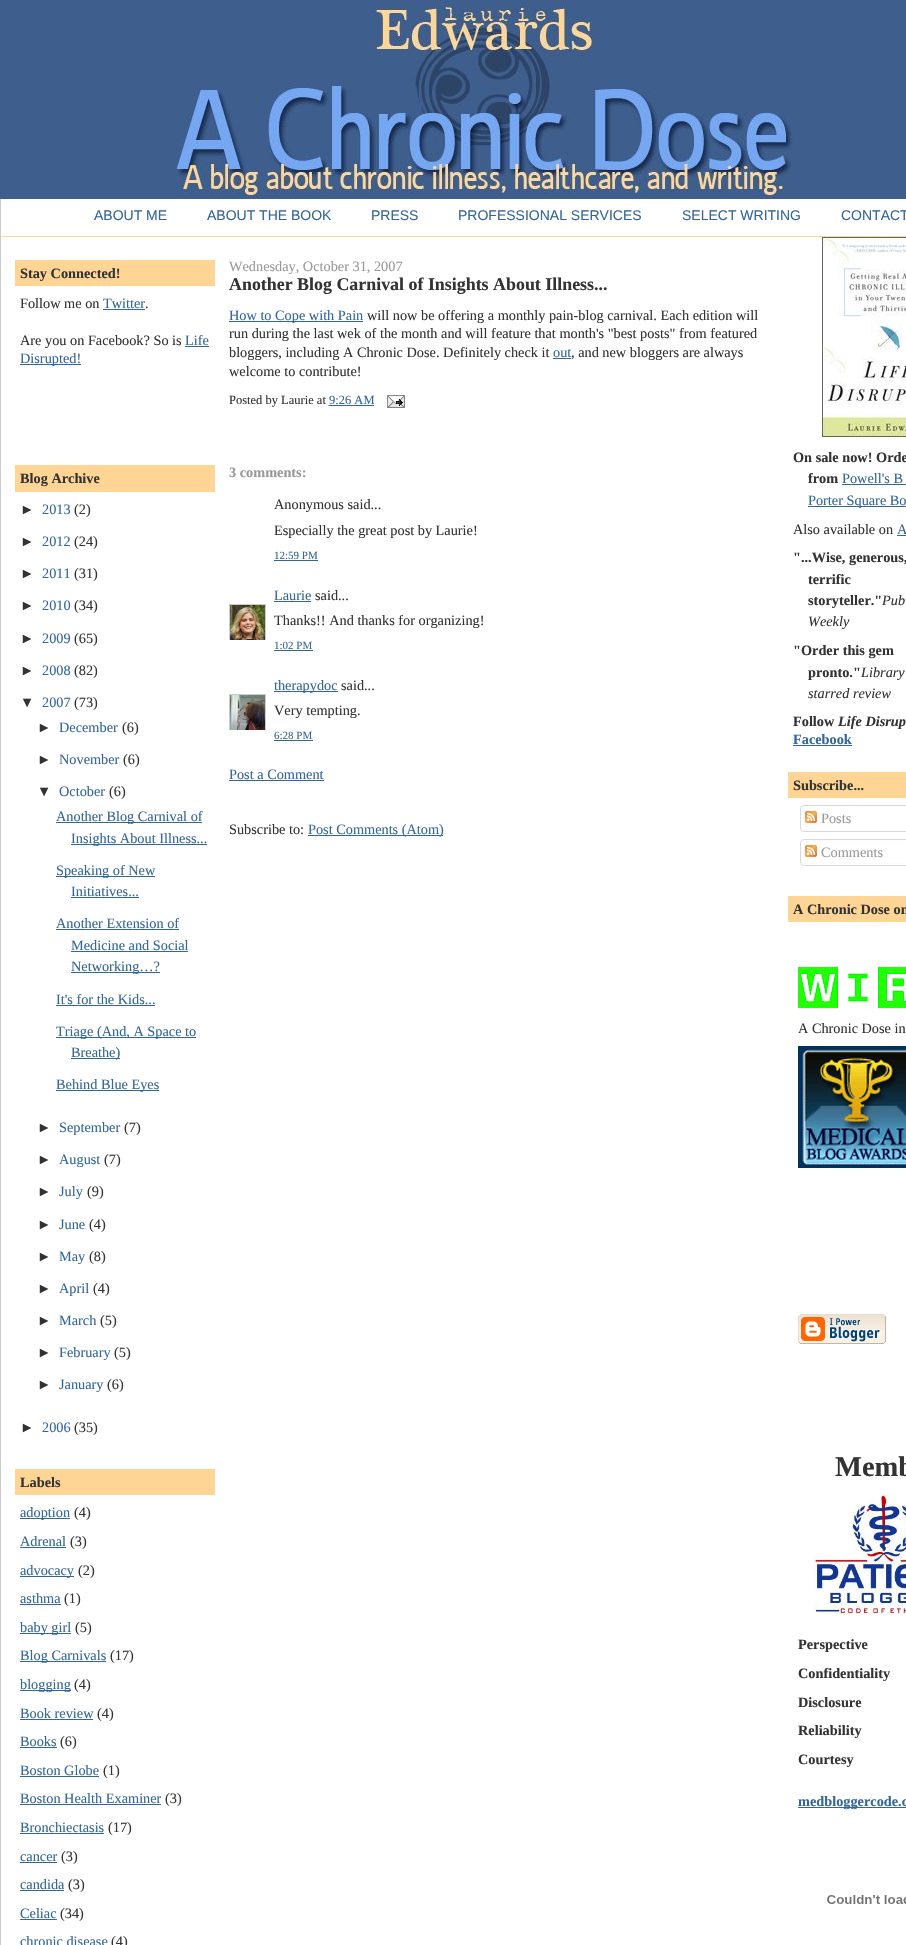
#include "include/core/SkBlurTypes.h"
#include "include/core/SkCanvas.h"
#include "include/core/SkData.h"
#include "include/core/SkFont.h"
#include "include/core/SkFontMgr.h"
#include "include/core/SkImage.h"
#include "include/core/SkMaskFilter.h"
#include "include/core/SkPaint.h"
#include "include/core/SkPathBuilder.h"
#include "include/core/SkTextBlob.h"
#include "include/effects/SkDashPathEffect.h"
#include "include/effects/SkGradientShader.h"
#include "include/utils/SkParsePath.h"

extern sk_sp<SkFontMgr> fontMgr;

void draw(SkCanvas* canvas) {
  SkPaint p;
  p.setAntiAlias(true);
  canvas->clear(SkColorSetRGB(62, 94, 141));
  canvas->drawImageRect(SkImages::DeferredFromEncodedData(SkData::MakeFromFileName("images/1.png")), SkRect::MakeLTRB(176, 1, 793, 198), SkSamplingOptions());
  p.setColor(SK_ColorWHITE);
  canvas->drawRect(SkRect::MakeLTRB(1, 199, 906, 1945), p);
  p.setColor(SkColorSetRGB(204, 204, 204));
  canvas->drawRect(SkRect::MakeLTRB(0, 199, 1, 1945), p);
  p.setColor(SkColorSetRGB(255, 213, 149));
  canvas->drawRect(SkRect::MakeLTRB(1, 236, 906, 237), p);
  canvas->drawRect(SkRect::MakeLTRB(15, 260, 215, 286), p);
  p.setColor(SkColorSetRGB(51, 102, 153));
  canvas->drawRect(SkRect::MakeLTRB(103, 309, 145, 310), p);
  canvas->drawRect(SkRect::MakeLTRB(185, 346, 209, 347), p);
  canvas->drawRect(SkRect::MakeLTRB(20, 364, 81, 365), p);
  p.setColor(SkColorSetRGB(255, 213, 149));
  canvas->drawRect(SkRect::MakeLTRB(15, 465, 215, 492), p);
  p.setColor(SkColorSetRGB(51, 102, 153));
  canvas->drawRect(SkRect::MakeLTRB(56, 822, 202, 823), p);
  canvas->drawRect(SkRect::MakeLTRB(71, 844, 207, 845), p);
  canvas->drawRect(SkRect::MakeLTRB(56, 876, 155, 877), p);
  canvas->drawRect(SkRect::MakeLTRB(71, 897, 139, 898), p);
  canvas->drawRect(SkRect::MakeLTRB(56, 929, 179, 930), p);
  canvas->drawRect(SkRect::MakeLTRB(71, 951, 188, 952), p);
  canvas->drawRect(SkRect::MakeLTRB(71, 972, 160, 973), p);
  canvas->drawRect(SkRect::MakeLTRB(56, 1005, 155, 1006), p);
  canvas->drawRect(SkRect::MakeLTRB(56, 1037, 196, 1038), p);
  canvas->drawRect(SkRect::MakeLTRB(71, 1058, 120, 1059), p);
  canvas->drawRect(SkRect::MakeLTRB(56, 1090, 159, 1091), p);
  p.setColor(SkColorSetRGB(255, 213, 149));
  canvas->drawRect(SkRect::MakeLTRB(15, 1469, 215, 1495), p);
  p.setColor(SkColorSetRGB(51, 102, 153));
  canvas->drawRect(SkRect::MakeLTRB(20, 1518, 70, 1519), p);
  canvas->drawRect(SkRect::MakeLTRB(20, 1547, 66, 1548), p);
  canvas->drawRect(SkRect::MakeLTRB(20, 1576, 74, 1577), p);
  canvas->drawRect(SkRect::MakeLTRB(20, 1604, 61, 1605), p);
  canvas->drawRect(SkRect::MakeLTRB(20, 1633, 71, 1634), p);
  canvas->drawRect(SkRect::MakeLTRB(20, 1661, 106, 1662), p);
  canvas->drawRect(SkRect::MakeLTRB(20, 1690, 71, 1691), p);
  canvas->drawRect(SkRect::MakeLTRB(20, 1719, 93, 1720), p);
  canvas->drawRect(SkRect::MakeLTRB(20, 1747, 57, 1748), p);
  canvas->drawRect(SkRect::MakeLTRB(20, 1776, 99, 1777), p);
  canvas->drawRect(SkRect::MakeLTRB(20, 1804, 161, 1805), p);
  canvas->drawRect(SkRect::MakeLTRB(20, 1833, 104, 1834), p);
  canvas->drawRect(SkRect::MakeLTRB(20, 1862, 57, 1863), p);
  canvas->drawRect(SkRect::MakeLTRB(20, 1890, 64, 1891), p);
  canvas->drawRect(SkRect::MakeLTRB(20, 1919, 57, 1920), p);
  canvas->drawRect(SkRect::MakeLTRB(229, 321, 363, 322), p);
  canvas->drawRect(SkRect::MakeLTRB(553, 358, 571, 359), p);
  p.setStyle(SkPaint::kStroke_Style);
  p.setStrokeWidth(1);
  p.setPathEffect(SkDashPathEffect::Make({{1, 1}}, 0));
  canvas->drawPath(SkPathBuilder().moveTo(328.5f, 405.5f).lineTo(374, 405.5f).detach(), p);
  p.setPathEffect(nullptr);
  p.setStyle(SkPaint::kFill_Style);
  canvas->drawRect(SkRect::MakeLTRB(329, 405, 374, 406), p);
  canvas->drawImageRect(SkImages::DeferredFromEncodedData(SkData::MakeFromFileName("images/2.png")), SkRect::MakeLTRB(387, 395, 405, 408), SkSamplingOptions());
  canvas->drawRect(SkRect::MakeLTRB(274, 560, 318, 561), p);
  canvas->drawRect(SkRect::MakeLTRB(274, 601, 311, 602), p);
  canvas->save();
  canvas->clipRect(SkRect::MakeLTRB(229, 604, 266, 640));
  p.setStyle(SkPaint::kStroke_Style);
  p.setColor(SkColorSetRGB(204, 204, 204));
  canvas->drawRect(SkRect::MakeLTRB(229.5f, 604.5f, 265.5f, 640.5f), p);
  canvas->restore();
  canvas->drawImageRect(SkImages::DeferredFromEncodedData(SkData::MakeFromFileName("images/3.png")), SkRect::MakeLTRB(230, 605, 265, 640), SkSamplingOptions());
  p.setStyle(SkPaint::kFill_Style);
  p.setColor(SkColorSetRGB(51, 102, 153));
  canvas->drawRect(SkRect::MakeLTRB(274, 650, 313, 651), p);
  canvas->drawRect(SkRect::MakeLTRB(274, 691, 338, 692), p);
  canvas->save();
  canvas->clipRect(SkRect::MakeLTRB(229, 694, 266, 730));
  p.setStyle(SkPaint::kStroke_Style);
  p.setColor(SkColorSetRGB(204, 204, 204));
  canvas->drawRect(SkRect::MakeLTRB(229.5f, 694.5f, 265.5f, 730.5f), p);
  canvas->restore();
  canvas->drawImageRect(SkImages::DeferredFromEncodedData(SkData::MakeFromFileName("images/4.png")), SkRect::MakeLTRB(230, 695, 265, 730), SkSamplingOptions());
  p.setStyle(SkPaint::kFill_Style);
  p.setColor(SkColorSetRGB(51, 102, 153));
  canvas->drawRect(SkRect::MakeLTRB(274, 740, 313, 741), p);
  canvas->drawRect(SkRect::MakeLTRB(229, 780, 324, 781), p);
  canvas->drawRect(SkRect::MakeLTRB(308, 835, 443, 836), p);
  canvas->drawImageRect(SkImages::DeferredFromEncodedData(SkData::MakeFromFileName("images/5.png")), SkRect::MakeLTRB(822, 237, 906, 437), SkSamplingOptions());
  canvas->drawRect(SkRect::MakeLTRB(842, 484, 906, 485), p);
  canvas->drawRect(SkRect::MakeLTRB(808, 506, 906, 507), p);
  canvas->drawRect(SkRect::MakeLTRB(897, 535, 906, 536), p);
  canvas->drawRect(SkRect::MakeLTRB(793, 745, 852, 746), p);
  p.setColor(SkColorSetRGB(255, 213, 149));
  canvas->drawRect(SkRect::MakeLTRB(788, 772, 906, 798), p);
  canvas->drawImageRect(SkImages::DeferredFromEncodedData(SkData::MakeFromFileName("images/6.png")), SkRect::MakeLTRB(800, 805, 906, 829), SkSamplingOptions());
  canvas->drawImageRect(SkImages::DeferredFromEncodedData(SkData::MakeFromFileName("images/7.png")), SkRect::MakeLTRB(805, 811, 817, 823), SkSamplingOptions());
  canvas->drawImageRect(SkImages::DeferredFromEncodedData(SkData::MakeFromFileName("images/8.png")), SkRect::MakeLTRB(800, 829, 906, 832), SkSamplingOptions());
  canvas->drawImageRect(SkImages::DeferredFromEncodedData(SkData::MakeFromFileName("images/6.png")), SkRect::MakeLTRB(800, 839, 906, 863), SkSamplingOptions());
  canvas->drawImageRect(SkImages::DeferredFromEncodedData(SkData::MakeFromFileName("images/7.png")), SkRect::MakeLTRB(805, 845, 817, 857), SkSamplingOptions());
  canvas->drawImageRect(SkImages::DeferredFromEncodedData(SkData::MakeFromFileName("images/8.png")), SkRect::MakeLTRB(800, 863, 906, 866), SkSamplingOptions());
  canvas->drawRect(SkRect::MakeLTRB(788, 896, 906, 922), p);
  canvas->drawImageRect(SkImages::DeferredFromEncodedData(SkData::MakeFromFileName("images/9.png")), SkRect::MakeLTRB(798, 967, 906, 1008), SkSamplingOptions());
  canvas->drawImageRect(SkImages::DeferredFromEncodedData(SkData::MakeFromFileName("images/10.png")), SkRect::MakeLTRB(798, 1046, 906, 1168), SkSamplingOptions());
  canvas->drawImageRect(SkImages::DeferredFromEncodedData(SkData::MakeFromFileName("images/11.png")), SkRect::MakeLTRB(798, 1314, 886, 1344), SkSamplingOptions());
  canvas->drawImageRect(SkImages::DeferredFromEncodedData(SkData::MakeFromFileName("images/12.png")), SkRect::MakeLTRB(813, 1495, 906, 1615), SkSamplingOptions());
  p.setColor(SkColorSetRGB(51, 102, 153));
  canvas->drawRect(SkRect::MakeLTRB(798, 1807, 906, 1808), p);
  canvas->drawImageRect(SkImages::DeferredFromEncodedData(SkData::MakeFromFileName("images/13.png")), SkRect::MakeLTRB(827, 1895, 906, 1904), SkSamplingOptions());
  SkFont font1(fontMgr->matchFamilyStyle("Liberation Sans", SkFontStyle::Normal()), 14);
  font1.setSubpixel(true);
  canvas->drawString("ABOUT ME", 94, 220, font1, p);
  canvas->drawString("ABOUT THE BOOK", 207, 220, font1, p);
  canvas->drawString("PRESS", 371, 220, font1, p);
  canvas->drawString("PROFESSIONAL SERVICES", 458, 220, font1, p);
  canvas->drawString("SELECT WRITING", 682, 220, font1, p);
  canvas->drawString("CONTACT", 841, 220, font1, p);
  SkFont font2(fontMgr->matchFamilyStyle("Liberation Serif", SkFontStyle::Bold()), 14.3f);
  font2.setSubpixel(true);
  p.setColor(SkColorSetRGB(51, 51, 51));
  canvas->drawString("Stay Connected!", 20, 278, font2, p);
  SkFont font3(fontMgr->matchFamilyStyle("Liberation Serif", SkFontStyle::Normal()), 14.3f);
  font3.setSubpixel(true);
  canvas->drawString("Follow me on", 20, 308, font3, p);
  p.setColor(SkColorSetRGB(51, 102, 153));
  canvas->drawString("Twitter", 103, 308, font3, p);
  p.setColor(SkColorSetRGB(51, 51, 51));
  canvas->drawString(".", 145, 308, font3, p);
  canvas->drawString("Are you on Facebook? So is", 20, 345, font3, p);
  p.setColor(SkColorSetRGB(51, 102, 153));
  canvas->drawString("Life", 185, 345, font3, p);
  canvas->drawString("Disrupted!", 20, 363, font3, p);
  p.setColor(SkColorSetRGB(51, 51, 51));
  canvas->drawString("Blog Archive", 20, 483, font2, p);
  SkFont font4(fontMgr->matchFamilyStyle("Liberation Sans", SkFontStyle::Normal()), 14.3f);
  font4.setSubpixel(true);
  canvas->drawString("►", 20, 514, font4, p);
  p.setColor(SkColorSetRGB(51, 102, 153));
  canvas->drawString("2013", 42, 514, font3, p);
  p.setColor(SkColorSetRGB(51, 51, 51));
  canvas->drawString("(2)", 74, 514, font3, p);
  canvas->drawString("►", 20, 546, font4, p);
  p.setColor(SkColorSetRGB(51, 102, 153));
  canvas->drawString("2012", 42, 546, font3, p);
  p.setColor(SkColorSetRGB(51, 51, 51));
  canvas->drawString("(24)", 74, 546, font3, p);
  canvas->drawString("►", 20, 578, font4, p);
  p.setColor(SkColorSetRGB(51, 102, 153));
  canvas->drawString("2011", 42, 578, font3, p);
  p.setColor(SkColorSetRGB(51, 51, 51));
  canvas->drawString("(31)", 74, 578, font3, p);
  canvas->drawString("►", 20, 610, font4, p);
  p.setColor(SkColorSetRGB(51, 102, 153));
  canvas->drawString("2010", 42, 610, font3, p);
  p.setColor(SkColorSetRGB(51, 51, 51));
  canvas->drawString("(34)", 74, 610, font3, p);
  canvas->drawString("►", 20, 643, font4, p);
  p.setColor(SkColorSetRGB(51, 102, 153));
  canvas->drawString("2009", 42, 643, font3, p);
  p.setColor(SkColorSetRGB(51, 51, 51));
  canvas->drawString("(65)", 74, 643, font3, p);
  canvas->drawString("►", 20, 675, font4, p);
  p.setColor(SkColorSetRGB(51, 102, 153));
  canvas->drawString("2008", 42, 675, font3, p);
  p.setColor(SkColorSetRGB(51, 51, 51));
  canvas->drawString("(82)", 74, 675, font3, p);
  canvas->drawString("▼", 20, 707, font4, p);
  p.setColor(SkColorSetRGB(51, 102, 153));
  canvas->drawString("2007", 42, 707, font3, p);
  p.setColor(SkColorSetRGB(51, 51, 51));
  canvas->drawString("(73)", 74, 707, font3, p);
  canvas->drawString("►", 37, 732, font4, p);
  p.setColor(SkColorSetRGB(51, 102, 153));
  canvas->drawString("December", 59, 732, font3, p);
  p.setColor(SkColorSetRGB(51, 51, 51));
  canvas->drawString("(6)", 122, 732, font3, p);
  canvas->drawString("►", 37, 764, font4, p);
  p.setColor(SkColorSetRGB(51, 102, 153));
  canvas->drawString("November", 59, 764, font3, p);
  p.setColor(SkColorSetRGB(51, 51, 51));
  canvas->drawString("(6)", 123, 764, font3, p);
  canvas->drawString("▼", 37, 796, font4, p);
  p.setColor(SkColorSetRGB(51, 102, 153));
  canvas->drawString("October", 59, 796, font3, p);
  p.setColor(SkColorSetRGB(51, 51, 51));
  canvas->drawString("(6)", 109, 796, font3, p);
  p.setColor(SkColorSetRGB(51, 102, 153));
  canvas->drawString("Another Blog Carnival of", 56, 821, font3, p);
  canvas->drawString("Insights About Illness...", 71, 843, font3, p);
  canvas->drawString("Speaking of New", 56, 875, font3, p);
  canvas->drawString("Initiatives...", 71, 896, font3, p);
  canvas->drawString("Another Extension of", 56, 928, font3, p);
  canvas->drawString("Medicine and Social", 71, 950, font3, p);
  canvas->drawString("Networking…?", 71, 971, font3, p);
  canvas->drawString("It's for the Kids...", 56, 1004, font3, p);
  canvas->drawString("Triage (And, A Space to", 56, 1036, font3, p);
  canvas->drawString("Breathe)", 71, 1057, font3, p);
  canvas->drawString("Behind Blue Eyes", 56, 1089, font3, p);
  p.setColor(SkColorSetRGB(51, 51, 51));
  canvas->drawString("►", 37, 1132, font4, p);
  p.setColor(SkColorSetRGB(51, 102, 153));
  canvas->drawString("September", 59, 1132, font3, p);
  p.setColor(SkColorSetRGB(51, 51, 51));
  canvas->drawString("(7)", 124, 1132, font3, p);
  canvas->drawString("►", 37, 1164, font4, p);
  p.setColor(SkColorSetRGB(51, 102, 153));
  canvas->drawString("August", 59, 1164, font3, p);
  p.setColor(SkColorSetRGB(51, 51, 51));
  canvas->drawString("(7)", 104, 1164, font3, p);
  canvas->drawString("►", 37, 1196, font4, p);
  p.setColor(SkColorSetRGB(51, 102, 153));
  canvas->drawString("July", 59, 1196, font3, p);
  p.setColor(SkColorSetRGB(51, 51, 51));
  canvas->drawString("(9)", 87, 1196, font3, p);
  canvas->drawString("►", 37, 1229, font4, p);
  p.setColor(SkColorSetRGB(51, 102, 153));
  canvas->drawString("June", 59, 1229, font3, p);
  p.setColor(SkColorSetRGB(51, 51, 51));
  canvas->drawString("(4)", 89, 1229, font3, p);
  canvas->drawString("►", 37, 1261, font4, p);
  p.setColor(SkColorSetRGB(51, 102, 153));
  canvas->drawString("May", 59, 1261, font3, p);
  p.setColor(SkColorSetRGB(51, 51, 51));
  canvas->drawString("(8)", 89, 1261, font3, p);
  canvas->drawString("►", 37, 1293, font4, p);
  p.setColor(SkColorSetRGB(51, 102, 153));
  canvas->drawString("April", 59, 1293, font3, p);
  p.setColor(SkColorSetRGB(51, 51, 51));
  canvas->drawString("(4)", 93, 1293, font3, p);
  canvas->drawString("►", 37, 1325, font4, p);
  p.setColor(SkColorSetRGB(51, 102, 153));
  canvas->drawString("March", 59, 1325, font3, p);
  p.setColor(SkColorSetRGB(51, 51, 51));
  canvas->drawString("(5)", 100, 1325, font3, p);
  canvas->drawString("►", 37, 1357, font4, p);
  p.setColor(SkColorSetRGB(51, 102, 153));
  canvas->drawString("February", 59, 1357, font3, p);
  p.setColor(SkColorSetRGB(51, 51, 51));
  canvas->drawString("(5)", 114, 1357, font3, p);
  canvas->drawString("►", 37, 1389, font4, p);
  p.setColor(SkColorSetRGB(51, 102, 153));
  canvas->drawString("January", 59, 1389, font3, p);
  p.setColor(SkColorSetRGB(51, 51, 51));
  canvas->drawString("(6)", 107, 1389, font3, p);
  canvas->drawString("►", 20, 1432, font4, p);
  p.setColor(SkColorSetRGB(51, 102, 153));
  canvas->drawString("2006", 42, 1432, font3, p);
  p.setColor(SkColorSetRGB(51, 51, 51));
  canvas->drawString("(35)", 74, 1432, font3, p);
  canvas->drawString("Labels", 20, 1487, font2, p);
  p.setColor(SkColorSetRGB(51, 102, 153));
  canvas->drawString("adoption", 20, 1517, font3, p);
  p.setColor(SkColorSetRGB(51, 51, 51));
  canvas->drawString("(4)", 74, 1517, font3, p);
  p.setColor(SkColorSetRGB(51, 102, 153));
  canvas->drawString("Adrenal", 20, 1546, font3, p);
  p.setColor(SkColorSetRGB(51, 51, 51));
  canvas->drawString("(3)", 70, 1546, font3, p);
  p.setColor(SkColorSetRGB(51, 102, 153));
  canvas->drawString("advocacy", 20, 1575, font3, p);
  p.setColor(SkColorSetRGB(51, 51, 51));
  canvas->drawString("(2)", 78, 1575, font3, p);
  p.setColor(SkColorSetRGB(51, 102, 153));
  canvas->drawString("asthma", 20, 1603, font3, p);
  p.setColor(SkColorSetRGB(51, 51, 51));
  canvas->drawString("(1)", 64, 1603, font3, p);
  p.setColor(SkColorSetRGB(51, 102, 153));
  canvas->drawString("baby girl", 20, 1632, font3, p);
  p.setColor(SkColorSetRGB(51, 51, 51));
  canvas->drawString("(5)", 75, 1632, font3, p);
  p.setColor(SkColorSetRGB(51, 102, 153));
  canvas->drawString("Blog Carnivals", 20, 1660, font3, p);
  p.setColor(SkColorSetRGB(51, 51, 51));
  canvas->drawString("(17)", 110, 1660, font3, p);
  p.setColor(SkColorSetRGB(51, 102, 153));
  canvas->drawString("blogging", 20, 1689, font3, p);
  p.setColor(SkColorSetRGB(51, 51, 51));
  canvas->drawString("(4)", 74, 1689, font3, p);
  p.setColor(SkColorSetRGB(51, 102, 153));
  canvas->drawString("Book review", 20, 1718, font3, p);
  p.setColor(SkColorSetRGB(51, 51, 51));
  canvas->drawString("(4)", 97, 1718, font3, p);
  p.setColor(SkColorSetRGB(51, 102, 153));
  canvas->drawString("Books", 20, 1746, font3, p);
  p.setColor(SkColorSetRGB(51, 51, 51));
  canvas->drawString("(6)", 60, 1746, font3, p);
  p.setColor(SkColorSetRGB(51, 102, 153));
  canvas->drawString("Boston Globe", 20, 1775, font3, p);
  p.setColor(SkColorSetRGB(51, 51, 51));
  canvas->drawString("(1)", 103, 1775, font3, p);
  p.setColor(SkColorSetRGB(51, 102, 153));
  canvas->drawString("Boston Health Examiner", 20, 1803, font3, p);
  p.setColor(SkColorSetRGB(51, 51, 51));
  canvas->drawString("(3)", 165, 1803, font3, p);
  p.setColor(SkColorSetRGB(51, 102, 153));
  canvas->drawString("Bronchiectasis", 20, 1832, font3, p);
  p.setColor(SkColorSetRGB(51, 51, 51));
  canvas->drawString("(17)", 108, 1832, font3, p);
  p.setColor(SkColorSetRGB(51, 102, 153));
  canvas->drawString("cancer", 20, 1861, font3, p);
  p.setColor(SkColorSetRGB(51, 51, 51));
  canvas->drawString("(3)", 61, 1861, font3, p);
  p.setColor(SkColorSetRGB(51, 102, 153));
  canvas->drawString("candida", 20, 1889, font3, p);
  p.setColor(SkColorSetRGB(51, 51, 51));
  canvas->drawString("(3)", 68, 1889, font3, p);
  p.setColor(SkColorSetRGB(51, 102, 153));
  canvas->drawString("Celiac", 20, 1918, font3, p);
  p.setColor(SkColorSetRGB(51, 51, 51));
  canvas->drawString("(34)", 60, 1918, font3, p);
  p.setColor(SkColorSetRGB(51, 102, 153));
  canvas->drawString("chronic disease", 20, 1946, font3, p);
  p.setColor(SkColorSetRGB(51, 51, 51));
  canvas->drawString("(4)", 111, 1946, font3, p);
  p.setColor(SkColorSetRGB(153, 153, 153));
  canvas->drawString("Wednesday, October 31, 2007", 229, 271, font3, p);
  SkFont font5(fontMgr->matchFamilyStyle("Liberation Serif", SkFontStyle::Bold()), 17.9f);
  font5.setSubpixel(true);
  p.setColor(SkColorSetRGB(51, 51, 51));
  canvas->drawString("Another Blog Carnival of Insights About Illness...", 229, 290, font5, p);
  p.setColor(SkColorSetRGB(51, 102, 153));
  canvas->drawString("How to Cope with Pain", 229, 320, font3, p);
  p.setColor(SkColorSetRGB(51, 51, 51));
  canvas->drawString("will now be offering a monthly pain-blog carnival. Each edition will", 367, 320, font3, p);
  canvas->drawString("run during the last wek of the month and will feature that month's \"best posts\" from featured", 229, 338, font3, p);
  canvas->drawString("bloggers, including A Chronic Dose. Definitely check it", 229, 357, font3, p);
  p.setColor(SkColorSetRGB(51, 102, 153));
  canvas->drawString("out", 553, 357, font3, p);
  p.setColor(SkColorSetRGB(51, 51, 51));
  canvas->drawString(", and new bloggers are always", 571, 357, font3, p);
  canvas->drawString("welcome to contribute!", 229, 376, font3, p);
  SkFont font6(fontMgr->matchFamilyStyle("Liberation Serif", SkFontStyle::Normal()), 12.5f);
  font6.setSubpixel(true);
  canvas->drawString("Posted by Laurie at", 229, 404, font6, p);
  p.setColor(SkColorSetRGB(51, 102, 153));
  canvas->drawString("9:26 AM", 329, 404, font6, p);
  p.setColor(SkColorSetRGB(153, 153, 153));
  canvas->drawString("3 comments:", 229, 477, font2, p);
  p.setColor(SkColorSetRGB(51, 51, 51));
  canvas->drawString("Anonymous said...", 274, 509, font3, p);
  canvas->drawString("Especially the great post by Laurie!", 274, 535, font3, p);
  SkFont font7(fontMgr->matchFamilyStyle("Liberation Serif", SkFontStyle::Normal()), 11);
  font7.setSubpixel(true);
  p.setColor(SkColorSetRGB(51, 102, 153));
  canvas->drawString("12:59 PM", 274, 559, font7, p);
  canvas->drawString("Laurie", 274, 600, font3, p);
  p.setColor(SkColorSetRGB(51, 51, 51));
  canvas->drawString("said...", 315, 600, font3, p);
  canvas->drawString("Thanks!! And thanks for organizing!", 274, 625, font3, p);
  p.setColor(SkColorSetRGB(51, 102, 153));
  canvas->drawString("1:02 PM", 274, 649, font7, p);
  canvas->drawString("therapydoc", 274, 690, font3, p);
  p.setColor(SkColorSetRGB(51, 51, 51));
  canvas->drawString("said...", 341, 690, font3, p);
  canvas->drawString("Very tempting.", 274, 715, font3, p);
  p.setColor(SkColorSetRGB(51, 102, 153));
  canvas->drawString("6:28 PM", 274, 739, font7, p);
  canvas->drawString("Post a Comment", 229, 779, font3, p);
  p.setColor(SkColorSetRGB(51, 51, 51));
  canvas->drawString("Subscribe to:", 229, 834, font3, p);
  p.setColor(SkColorSetRGB(51, 102, 153));
  canvas->drawString("Post Comments (Atom)", 308, 834, font3, p);
  p.setColor(SkColorSetRGB(51, 51, 51));
  canvas->drawString("On sale now! Orde", 793, 462, font2, p);
  canvas->drawString("from", 808, 483, font2, p);
  p.setColor(SkColorSetRGB(51, 102, 153));
  canvas->drawString("Powell's B", 842, 483, font3, p);
  canvas->drawString("Porter Square Bo", 808, 505, font3, p);
  p.setColor(SkColorSetRGB(51, 51, 51));
  canvas->drawString("Also available on", 793, 534, font3, p);
  p.setColor(SkColorSetRGB(51, 102, 153));
  canvas->drawString("A", 897, 534, font3, p);
  p.setColor(SkColorSetRGB(51, 51, 51));
  canvas->drawString("\"...Wise, generous,", 793, 562, font2, p);
  canvas->drawString("terrific", 808, 584, font2, p);
  canvas->drawString("storyteller.\"", 808, 605, font2, p);
  SkFont font8(fontMgr->matchFamilyStyle("Liberation Serif", SkFontStyle::Italic()), 14.3f);
  font8.setSubpixel(true);
  canvas->drawString("Pub", 882, 605, font8, p);
  canvas->drawString("Weekly", 808, 626, font8, p);
  canvas->drawString("\"Order this gem", 793, 655, font2, p);
  canvas->drawString("pronto.\"", 808, 677, font2, p);
  canvas->drawString("Library", 861, 677, font8, p);
  canvas->drawString("starred review", 808, 698, font8, p);
  canvas->drawString("Follow", 793, 726, font2, p);
  SkFont font9(fontMgr->matchFamilyStyle("Liberation Serif", SkFontStyle::BoldItalic()), 14.3f);
  font9.setSubpixel(true);
  canvas->drawString("Life Disrup", 838, 726, font9, p);
  p.setColor(SkColorSetRGB(51, 102, 153));
  canvas->drawString("Facebook", 793, 744, font2, p);
  p.setColor(SkColorSetRGB(51, 51, 51));
  canvas->drawString("Subscribe...", 793, 790, font2, p);
  p.setColor(SkColorSetRGB(153, 153, 153));
  canvas->drawString("Posts", 821, 823, font3, p);
  canvas->drawString("Comments", 821, 857, font3, p);
  p.setColor(SkColorSetRGB(51, 51, 51));
  canvas->drawString("A Chronic Dose on", 793, 914, font2, p);
  canvas->drawString("A Chronic Dose in", 798, 1033, font3, p);
  SkFont font10(fontMgr->matchFamilyStyle("Liberation Serif", SkFontStyle::Bold()), 28.5f);
  font10.setSubpixel(true);
  canvas->drawString("Memb", 835, 1476, font10, p);
  canvas->drawString("Perspective", 798, 1649, font2, p);
  canvas->drawString("Confidentiality", 798, 1678, font2, p);
  canvas->drawString("Disclosure", 798, 1707, font2, p);
  canvas->drawString("Reliability", 798, 1735, font2, p);
  canvas->drawString("Courtesy", 798, 1764, font2, p);
  p.setColor(SkColorSetRGB(51, 102, 153));
  canvas->drawString("medbloggercode.c", 798, 1806, font2, p);
}
